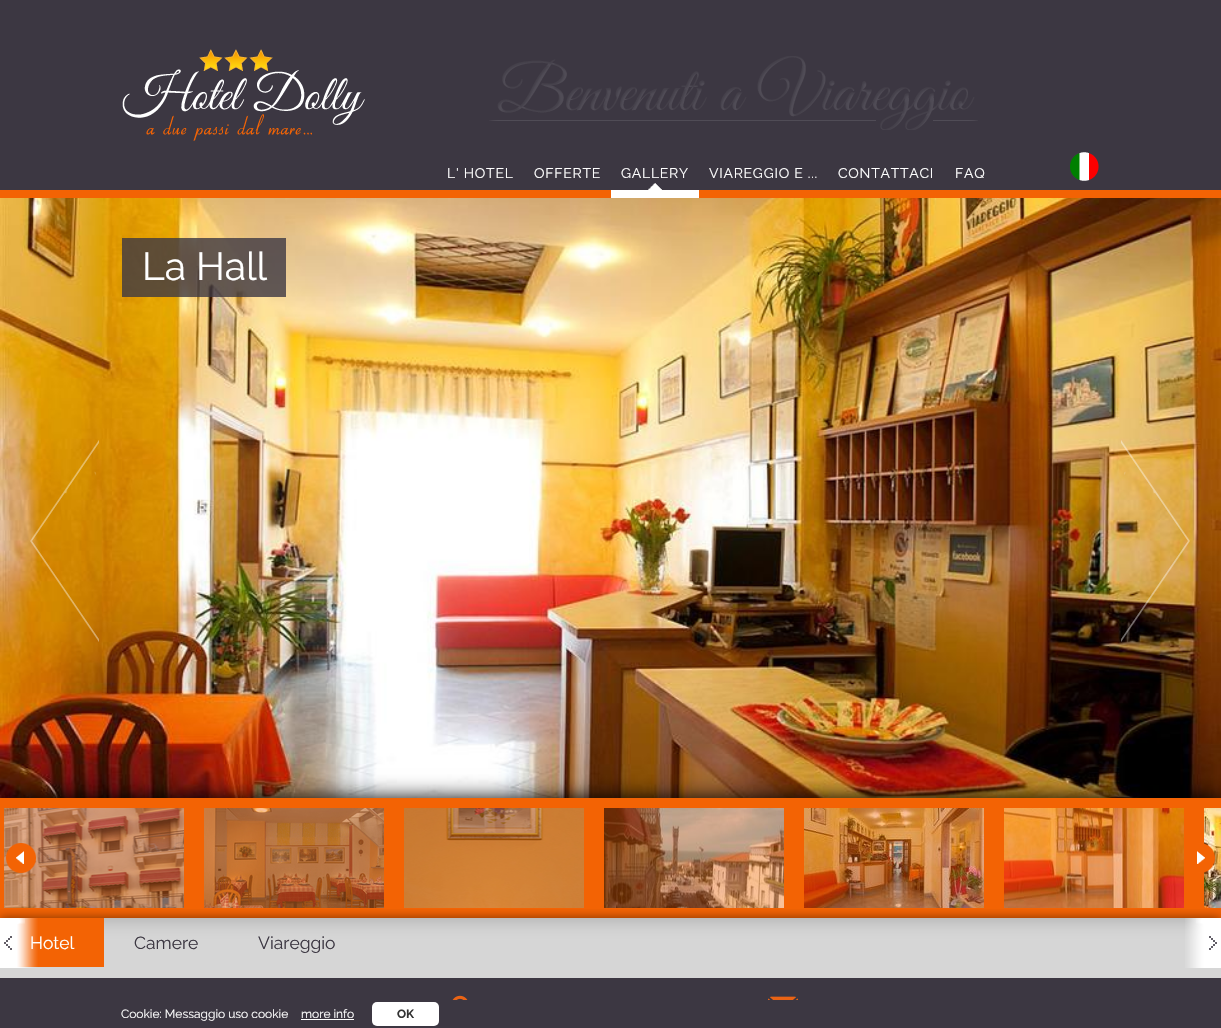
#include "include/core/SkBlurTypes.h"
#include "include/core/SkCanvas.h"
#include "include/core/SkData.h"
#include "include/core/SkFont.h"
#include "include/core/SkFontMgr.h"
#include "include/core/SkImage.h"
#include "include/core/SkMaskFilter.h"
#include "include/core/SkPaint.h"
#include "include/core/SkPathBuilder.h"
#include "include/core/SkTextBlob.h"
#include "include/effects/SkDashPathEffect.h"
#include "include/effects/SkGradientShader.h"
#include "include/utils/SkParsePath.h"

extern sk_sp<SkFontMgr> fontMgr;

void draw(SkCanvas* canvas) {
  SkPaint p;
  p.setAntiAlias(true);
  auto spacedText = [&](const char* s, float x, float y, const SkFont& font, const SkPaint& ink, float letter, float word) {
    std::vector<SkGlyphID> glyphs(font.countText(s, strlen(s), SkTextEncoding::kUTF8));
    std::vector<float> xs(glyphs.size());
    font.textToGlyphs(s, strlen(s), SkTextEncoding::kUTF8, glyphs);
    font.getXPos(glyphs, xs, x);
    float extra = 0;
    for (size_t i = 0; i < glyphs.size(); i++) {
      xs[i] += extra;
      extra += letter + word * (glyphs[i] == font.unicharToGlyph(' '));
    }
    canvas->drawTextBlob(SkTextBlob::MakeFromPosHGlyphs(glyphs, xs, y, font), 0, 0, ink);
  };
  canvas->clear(SK_ColorWHITE);
  p.setColor(SkColorSetRGB(60, 55, 66));
  canvas->drawRect(SkRect::MakeLTRB(0, 0, 1221, 190), p);
  p.setColor(SkColorSetRGB(243, 99, 4));
  canvas->drawRect(SkRect::MakeLTRB(0, 190, 1221, 198), p);
  canvas->drawImageRect(SkImages::DeferredFromEncodedData(SkData::MakeFromFileName("images/1.png")), SkRect::MakeLTRB(122, 49, 365, 141), SkSamplingOptions());
  canvas->drawImageRect(SkImages::DeferredFromEncodedData(SkData::MakeFromFileName("images/2.png")), SkRect::MakeLTRB(489, 56, 978, 130), SkSamplingOptions());
  canvas->drawImageRect(SkImages::DeferredFromEncodedData(SkData::MakeFromFileName("images/3.png")), SkRect::MakeLTRB(648, 183, 662, 190), SkSamplingOptions());
  p.setColor(SK_ColorWHITE);
  canvas->drawRect(SkRect::MakeLTRB(611, 190, 699, 198), p);
  canvas->drawImageRect(SkImages::DeferredFromEncodedData(SkData::MakeFromFileName("images/4.png")), SkRect::MakeLTRB(1070, 152, 1099, 181), SkSamplingOptions());
  canvas->drawImageRect(SkImages::DeferredFromEncodedData(SkData::MakeFromFileName("images/5.png")), SkRect::MakeLTRB(0, 198, 1221, 798), SkSamplingOptions());
  p.setColor(SkColorSetARGB(204, 60, 55, 66));
  canvas->drawRect(SkRect::MakeLTRB(122, 238, 286, 297), p);
  canvas->drawImageRect(SkImages::DeferredFromEncodedData(SkData::MakeFromFileName("images/6.png")), SkRect::MakeLTRB(30, 440, 99, 642), SkSamplingOptions());
  canvas->drawImageRect(SkImages::DeferredFromEncodedData(SkData::MakeFromFileName("images/7.png")), SkRect::MakeLTRB(1121, 440, 1190, 642), SkSamplingOptions());
  p.setColor(SkColorSetRGB(243, 99, 4));
  canvas->drawRect(SkRect::MakeLTRB(0, 798, 1221, 918), p);
  canvas->save();
  canvas->clipPath(SkPathBuilder(SkPathFillType::kEvenOdd).moveTo(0, 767).lineTo(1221, 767).lineTo(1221, 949).lineTo(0, 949).close().moveTo(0, 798).lineTo(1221, 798).lineTo(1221, 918).lineTo(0, 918).close().detach(), true);
  p.setColor(SK_ColorBLACK);
  p.setMaskFilter(SkMaskFilter::MakeBlur(kNormal_SkBlurStyle, 10));
  canvas->drawRect(SkRect::MakeLTRB(0, 798, 1221, 918), p);
  p.setMaskFilter(nullptr);
  canvas->restore();
  canvas->drawImageRect(SkImages::DeferredFromEncodedData(SkData::MakeFromFileName("images/8.png")), SkRect::MakeLTRB(4, 808, 184, 908), SkSamplingOptions());
  canvas->drawImageRect(SkImages::DeferredFromEncodedData(SkData::MakeFromFileName("images/9.png")), SkRect::MakeLTRB(204, 808, 384, 908), SkSamplingOptions());
  canvas->drawImageRect(SkImages::DeferredFromEncodedData(SkData::MakeFromFileName("images/10.png")), SkRect::MakeLTRB(404, 808, 584, 908), SkSamplingOptions());
  canvas->drawImageRect(SkImages::DeferredFromEncodedData(SkData::MakeFromFileName("images/11.png")), SkRect::MakeLTRB(604, 808, 784, 908), SkSamplingOptions());
  canvas->drawImageRect(SkImages::DeferredFromEncodedData(SkData::MakeFromFileName("images/12.png")), SkRect::MakeLTRB(804, 808, 984, 908), SkSamplingOptions());
  canvas->drawImageRect(SkImages::DeferredFromEncodedData(SkData::MakeFromFileName("images/13.png")), SkRect::MakeLTRB(1004, 808, 1184, 908), SkSamplingOptions());
  canvas->drawImageRect(SkImages::DeferredFromEncodedData(SkData::MakeFromFileName("images/14.png")), SkRect::MakeLTRB(1204, 808, 1221, 908), SkSamplingOptions());
  canvas->drawImageRect(SkImages::DeferredFromEncodedData(SkData::MakeFromFileName("images/15.png")), SkRect::MakeLTRB(6, 843, 36, 873), SkSamplingOptions());
  canvas->drawImageRect(SkImages::DeferredFromEncodedData(SkData::MakeFromFileName("images/16.png")), SkRect::MakeLTRB(1197, 843, 1215, 873), SkSamplingOptions());
  p.setColor(SkColorSetARGB(204, 204, 204, 204));
  canvas->drawRect(SkRect::MakeLTRB(0, 918, 1221, 978), p);
  canvas->save();
  canvas->clipRect(SkRect::MakeLTRB(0, 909, 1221, 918));
  p.setColor(SkColorSetARGB(128, 0, 0, 0));
  p.setMaskFilter(SkMaskFilter::MakeBlur(kNormal_SkBlurStyle, 5));
  canvas->drawRect(SkRect::MakeLTRB(0, 918, 1221, 978), p);
  p.setMaskFilter(nullptr);
  canvas->restore();
  p.setColor(SkColorSetRGB(243, 99, 4));
  canvas->drawRect(SkRect::MakeLTRB(17, 918, 104, 967), p);
  canvas->drawImageRect(SkImages::DeferredFromEncodedData(SkData::MakeFromFileName("images/18.png")), SkRect::MakeLTRB(1185, 918, 1221, 968), SkSamplingOptions());
  p.setColor(SkColorSetRGB(60, 55, 66));
  canvas->drawRect(SkRect::MakeLTRB(0, 978, 1221, 1028), p);
  canvas->drawImageRect(SkImages::DeferredFromEncodedData(SkData::MakeFromFileName("images/19.png")), SkRect::MakeLTRB(452, 995, 468, 1000), SkSamplingOptions());
  canvas->drawImageRect(SkImages::DeferredFromEncodedData(SkData::MakeFromFileName("images/20.png")), SkRect::MakeLTRB(768, 996, 798, 1000), SkSamplingOptions());
  p.setColor(SK_ColorWHITE);
  canvas->drawRect(SkRect::MakeLTRB(301, 1019, 354, 1020), p);
  canvas->drawRoundRect(SkRect::MakeLTRB(372, 1002, 439, 1026), 5, 5, p);
  SkFont font1(fontMgr->matchFamilyStyle("Raleway", SkFontStyle::Normal()), 14);
  font1.setSubpixel(true);
  spacedText("L' HOTEL", 447, 178, font1, p, 0.75f, 0);
  spacedText("OFFERTE", 534, 178, font1, p, 0.75f, 0);
  spacedText("GALLERY", 621, 178, font1, p, 0.75f, 0);
  spacedText("VIAREGGIO E ...", 709, 178, font1, p, 0.75f, 0);
  spacedText("CONTATTACI", 838, 178, font1, p, 0.75f, 0);
  spacedText("FAQ", 955, 178, font1, p, 0.75f, 0);
  SkFont font2(fontMgr->matchFamilyStyle("Raleway", SkFontStyle::Normal()), 39);
  font2.setSubpixel(true);
  canvas->drawString("La Hall", 142, 280, font2, p);
  SkFont font3(fontMgr->matchFamilyStyle("Raleway", SkFontStyle::Normal()), 17.5f);
  font3.setSubpixel(true);
  canvas->drawString("Hotel", 30, 949, font3, p);
  canvas->drawImageRect(SkImages::DeferredFromEncodedData(SkData::MakeFromFileName("images/17.png")), SkRect::MakeLTRB(0, 918, 38, 968), SkSamplingOptions());
  p.setColor(SkColorSetRGB(60, 55, 66));
  canvas->drawString("Camere", 134, 949, font3, p);
  canvas->drawString("Viareggio", 258, 949, font3, p);
  SkFont font4(fontMgr->matchFamilyStyle("Raleway", SkFontStyle::Normal()), 12);
  font4.setSubpixel(true);
  p.setColor(SK_ColorWHITE);
  canvas->drawString("Cookie: Messaggio uso cookie", 121, 1018, font4, p);
  canvas->drawString("more info", 301, 1018, font4, p);
  SkFont font5(fontMgr->matchFamilyStyle("Raleway", SkFontStyle::Bold()), 12);
  font5.setSubpixel(true);
  p.setColor(SkColorSetRGB(51, 51, 51));
  canvas->drawString("OK", 397, 1018, font5, p);
}
